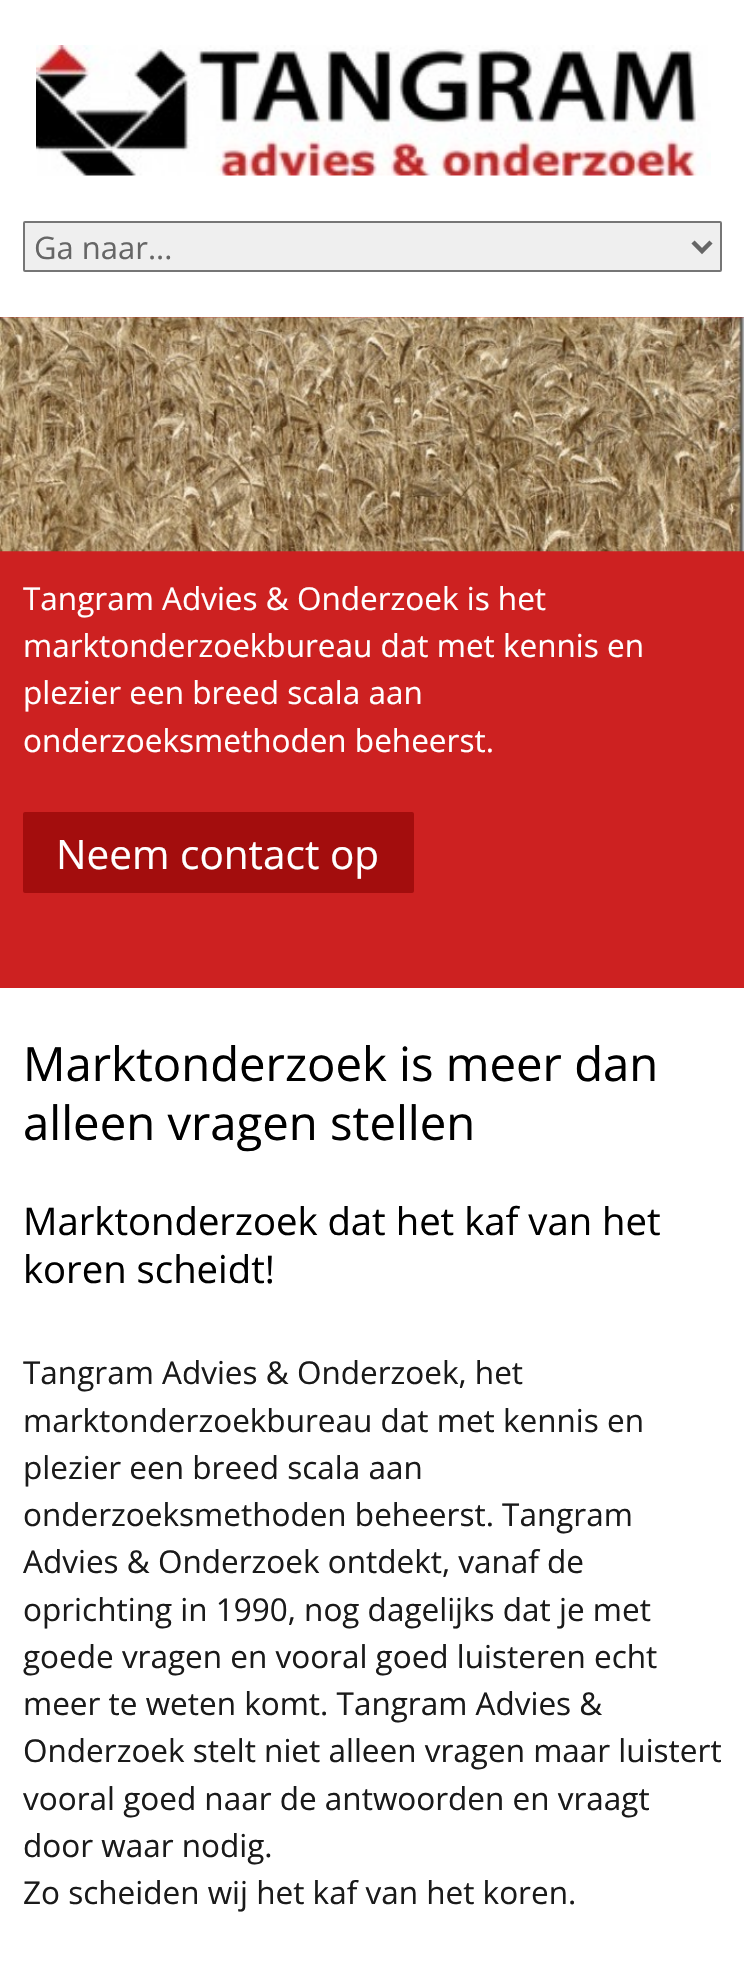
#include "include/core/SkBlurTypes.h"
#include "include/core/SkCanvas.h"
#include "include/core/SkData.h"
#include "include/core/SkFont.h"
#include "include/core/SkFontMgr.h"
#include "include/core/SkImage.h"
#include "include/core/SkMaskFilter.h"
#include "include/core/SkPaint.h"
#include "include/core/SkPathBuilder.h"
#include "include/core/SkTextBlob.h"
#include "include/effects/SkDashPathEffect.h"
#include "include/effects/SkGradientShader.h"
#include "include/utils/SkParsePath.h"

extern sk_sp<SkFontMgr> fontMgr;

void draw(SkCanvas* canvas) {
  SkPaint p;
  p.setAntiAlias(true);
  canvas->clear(SK_ColorWHITE);
  canvas->drawImageRect(SkImages::DeferredFromEncodedData(SkData::MakeFromFileName("images/1.png")), SkRect::MakeLTRB(36, 45, 711, 176), SkSamplingOptions());
  p.setColor(SkColorSetRGB(239, 239, 239));
  canvas->drawRoundRect(SkRect::MakeLTRB(24, 222, 721, 271), 1, 1, p);
  p.setStyle(SkPaint::kStroke_Style);
  p.setStrokeWidth(2);
  p.setColor(SkColorSetRGB(118, 118, 118));
  canvas->drawRoundRect(SkRect::MakeLTRB(24, 222, 721, 271), 1, 1, p);
  p.setStrokeWidth(4.5f);
  p.setColor(SkColorSetRGB(102, 102, 102));
  canvas->drawPath(SkPathBuilder().moveTo(693, 242).lineTo(702, 251).lineTo(711, 242).detach(), p);
  p.setStyle(SkPaint::kFill_Style);
  p.setColor(SkColorSetRGB(205, 33, 33));
  canvas->drawRect(SkRect::MakeLTRB(0, 317, 744, 988), p);
  canvas->drawImageRect(SkImages::DeferredFromEncodedData(SkData::MakeFromFileName("images/2.png")), SkRect::MakeLTRB(0, 317, 744, 552), SkSamplingOptions());
  p.setColor(SkColorSetRGB(163, 13, 13));
  canvas->drawRoundRect(SkRect::MakeLTRB(23, 812, 414, 893), 2, 2, p);
  SkFont font1(fontMgr->matchFamilyStyle("Open Sans", SkFontStyle::Normal()), 31);
  font1.setSubpixel(true);
  p.setColor(SkColorSetRGB(102, 102, 102));
  canvas->drawString("Ga naar...", 34, 259, font1, p);
  SkFont font2(fontMgr->matchFamilyStyle("Open Sans", SkFontStyle::Normal()), 31.5f);
  font2.setSubpixel(true);
  p.setColor(SK_ColorWHITE);
  canvas->drawString("Tangram Advies & Onderzoek is het", 23, 610, font2, p);
  canvas->drawString("marktonderzoekbureau dat met kennis en", 23, 657, font2, p);
  canvas->drawString("plezier een breed scala aan", 23, 704, font2, p);
  canvas->drawString("onderzoeksmethoden beheerst.", 23, 752, font2, p);
  SkFont font3(fontMgr->matchFamilyStyle("Open Sans", SkFontStyle::Normal()), 40.5f);
  font3.setSubpixel(true);
  canvas->drawString("Neem contact op", 56, 869, font3, p);
  SkFont font4(fontMgr->matchFamilyStyle("Open Sans", SkFontStyle::Normal()), 47.25f);
  font4.setSubpixel(true);
  p.setColor(SK_ColorBLACK);
  canvas->drawString("Marktonderzoek is meer dan", 23, 1081, font4, p);
  canvas->drawString("alleen vragen stellen", 23, 1140, font4, p);
  SkFont font5(fontMgr->matchFamilyStyle("Open Sans", SkFontStyle::Normal()), 38.25f);
  font5.setSubpixel(true);
  canvas->drawString("Marktonderzoek dat het kaf van het", 23, 1235, font5, p);
  canvas->drawString("koren scheidt!", 23, 1283, font5, p);
  p.setColor(SkColorSetRGB(26, 26, 26));
  canvas->drawString("Tangram Advies & Onderzoek, het", 23, 1384, font2, p);
  canvas->drawString("marktonderzoekbureau dat met kennis en", 23, 1432, font2, p);
  canvas->drawString("plezier een breed scala aan", 23, 1479, font2, p);
  canvas->drawString("onderzoeksmethoden beheerst. Tangram", 23, 1526, font2, p);
  canvas->drawString("Advies & Onderzoek ontdekt, vanaf de", 23, 1573, font2, p);
  canvas->drawString("oprichting in 1990, nog dagelijks dat je met", 23, 1621, font2, p);
  canvas->drawString("goede vragen en vooral goed luisteren echt", 23, 1668, font2, p);
  canvas->drawString("meer te weten komt. Tangram Advies &", 23, 1715, font2, p);
  canvas->drawString("Onderzoek stelt niet alleen vragen maar luistert", 23, 1762, font2, p);
  canvas->drawString("vooral goed naar de antwoorden en vraagt", 23, 1810, font2, p);
  canvas->drawString("door waar nodig.", 23, 1857, font2, p);
  canvas->drawString("Zo scheiden wij het kaf van het koren.", 23, 1904, font2, p);
}
